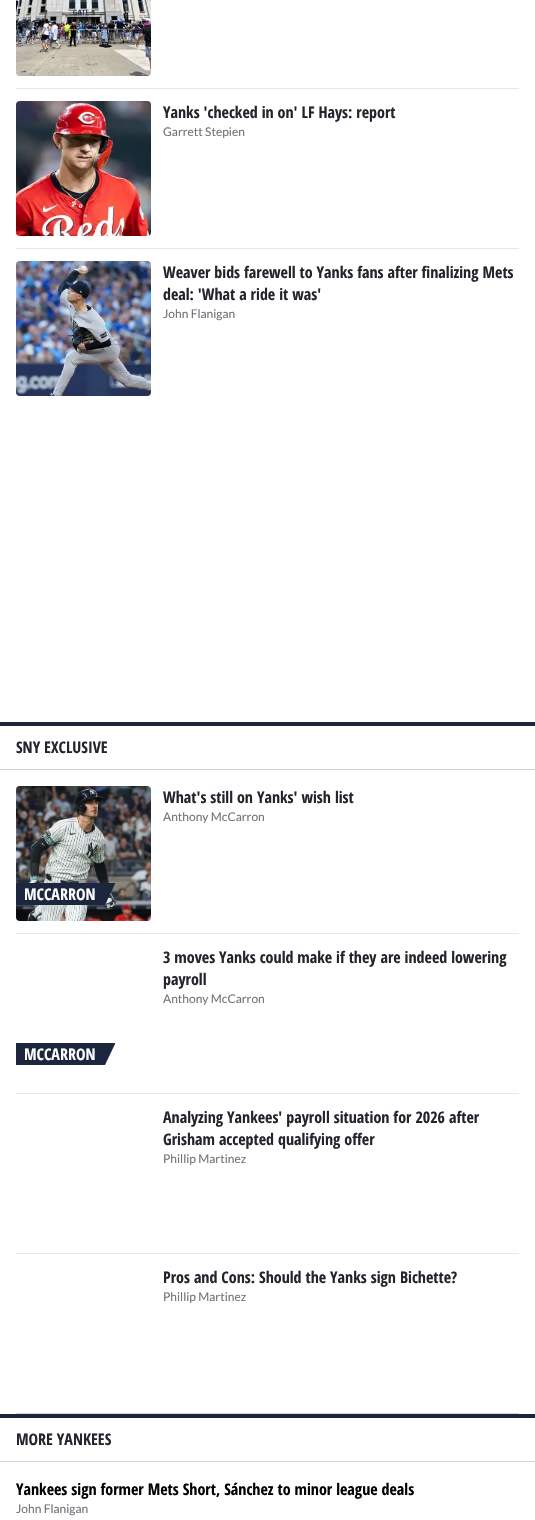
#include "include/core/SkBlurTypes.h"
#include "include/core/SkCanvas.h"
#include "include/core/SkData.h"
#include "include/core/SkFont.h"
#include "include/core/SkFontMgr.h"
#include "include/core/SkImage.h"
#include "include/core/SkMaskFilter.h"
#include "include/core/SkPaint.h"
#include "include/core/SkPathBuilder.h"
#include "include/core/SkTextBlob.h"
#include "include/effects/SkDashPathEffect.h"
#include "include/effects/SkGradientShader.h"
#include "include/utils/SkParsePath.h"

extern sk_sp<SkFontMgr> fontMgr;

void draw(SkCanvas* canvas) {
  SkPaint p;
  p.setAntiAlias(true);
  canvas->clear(SK_ColorWHITE);
  canvas->drawImageRect(SkImages::DeferredFromEncodedData(SkData::MakeFromFileName("images/1.png")), SkRect::MakeLTRB(16, 0, 151, 76), SkSamplingOptions());
  p.setColor(SkColorSetRGB(229, 231, 235));
  canvas->drawRect(SkRect::MakeLTRB(16, 88, 519, 89), p);
  canvas->drawImageRect(SkImages::DeferredFromEncodedData(SkData::MakeFromFileName("images/2.png")), SkRect::MakeLTRB(16, 101, 151, 236), SkSamplingOptions());
  canvas->drawRect(SkRect::MakeLTRB(16, 248, 519, 249), p);
  canvas->drawImageRect(SkImages::DeferredFromEncodedData(SkData::MakeFromFileName("images/3.png")), SkRect::MakeLTRB(16, 261, 151, 396), SkSamplingOptions());
  p.setColor(SkColorSetRGB(28, 38, 63));
  canvas->drawRect(SkRect::MakeLTRB(0, 722, 535, 726), p);
  p.setColor(SkColorSetRGB(209, 213, 219));
  canvas->drawRect(SkRect::MakeLTRB(0, 769, 535, 770), p);
  p.setColor(SkColorSetRGB(213, 213, 221));
  canvas->drawRect(SkRect::MakeLTRB(16, 1413, 519, 1414), p);
  canvas->drawImageRect(SkImages::DeferredFromEncodedData(SkData::MakeFromFileName("images/4.png")), SkRect::MakeLTRB(16, 786, 151, 921), SkSamplingOptions());
  p.setColor(SkColorSetRGB(28, 38, 63));
  canvas->drawPath(SkPathBuilder().moveTo(16, 883).lineTo(16, 905).lineTo(105, 905).lineTo(115, 884).lineTo(115, 883).lineTo(87, 883).close().detach(), p);
  p.setColor(SkColorSetRGB(229, 231, 235));
  canvas->drawRect(SkRect::MakeLTRB(16, 933, 519, 934), p);
  p.setColor(SkColorSetRGB(28, 38, 63));
  canvas->drawPath(SkPathBuilder().moveTo(16, 1043).lineTo(16, 1065).lineTo(105, 1065).lineTo(115, 1044).lineTo(115, 1043).lineTo(87, 1043).close().detach(), p);
  p.setColor(SkColorSetRGB(229, 231, 235));
  canvas->drawRect(SkRect::MakeLTRB(16, 1093, 519, 1094), p);
  canvas->drawRect(SkRect::MakeLTRB(16, 1253, 519, 1254), p);
  p.setColor(SkColorSetRGB(28, 38, 63));
  canvas->drawRect(SkRect::MakeLTRB(0, 1414, 535, 1418), p);
  p.setColor(SkColorSetRGB(209, 213, 219));
  canvas->drawRect(SkRect::MakeLTRB(0, 1461, 535, 1462), p);
  SkFont font1(fontMgr->matchFamilyStyle("Open Sans Condensed", SkFontStyle::Bold()), 16);
  font1.setSubpixel(true);
  p.setColor(SkColorSetRGB(36, 36, 45));
  canvas->drawString("Yanks 'checked in on' LF Hays: report", 163, 118, font1, p);
  SkFont font2(fontMgr->matchFamilyStyle("Lato", SkFontStyle::Normal()), 12);
  font2.setSubpixel(true);
  p.setColor(SkColorSetRGB(114, 114, 123));
  canvas->drawString("Garrett Stepien", 163, 136, font2, p);
  p.setColor(SkColorSetRGB(36, 36, 45));
  canvas->drawString("Weaver bids farewell to Yanks fans after finalizing Mets", 163, 278, font1, p);
  canvas->drawString("deal: 'What a ride it was'", 163, 300, font1, p);
  p.setColor(SkColorSetRGB(114, 114, 123));
  canvas->drawString("John Flanigan", 163, 318, font2, p);
  p.setColor(SkColorSetRGB(36, 36, 45));
  canvas->drawString("SNY EXCLUSIVE", 16, 753, font1, p);
  canvas->drawString("What's still on Yanks' wish list", 163, 803, font1, p);
  p.setColor(SkColorSetRGB(114, 114, 123));
  canvas->drawString("Anthony McCarron", 163, 821, font2, p);
  p.setColor(SK_ColorWHITE);
  canvas->drawString("MCCARRON", 24, 900, font1, p);
  p.setColor(SkColorSetRGB(36, 36, 45));
  canvas->drawString("3 moves Yanks could make if they are indeed lowering", 163, 963, font1, p);
  canvas->drawString("payroll", 163, 985, font1, p);
  p.setColor(SkColorSetRGB(114, 114, 123));
  canvas->drawString("Anthony McCarron", 163, 1003, font2, p);
  p.setColor(SK_ColorWHITE);
  canvas->drawString("MCCARRON", 24, 1060, font1, p);
  p.setColor(SkColorSetRGB(36, 36, 45));
  canvas->drawString("Analyzing Yankees' payroll situation for 2026 after", 163, 1123, font1, p);
  canvas->drawString("Grisham accepted qualifying offer", 163, 1145, font1, p);
  p.setColor(SkColorSetRGB(114, 114, 123));
  canvas->drawString("Phillip Martinez", 163, 1163, font2, p);
  p.setColor(SkColorSetRGB(36, 36, 45));
  canvas->drawString("Pros and Cons: Should the Yanks sign Bichette?", 163, 1283, font1, p);
  p.setColor(SkColorSetRGB(114, 114, 123));
  canvas->drawString("Phillip Martinez", 163, 1301, font2, p);
  p.setColor(SkColorSetRGB(36, 36, 45));
  canvas->drawString("MORE YANKEES", 16, 1445, font1, p);
  p.setColor(SK_ColorBLACK);
  canvas->drawString("Yankees sign former Mets Short, Sánchez to minor league deals", 16, 1495, font1, p);
  p.setColor(SkColorSetRGB(114, 114, 123));
  canvas->drawString("John Flanigan", 16, 1513, font2, p);
}
